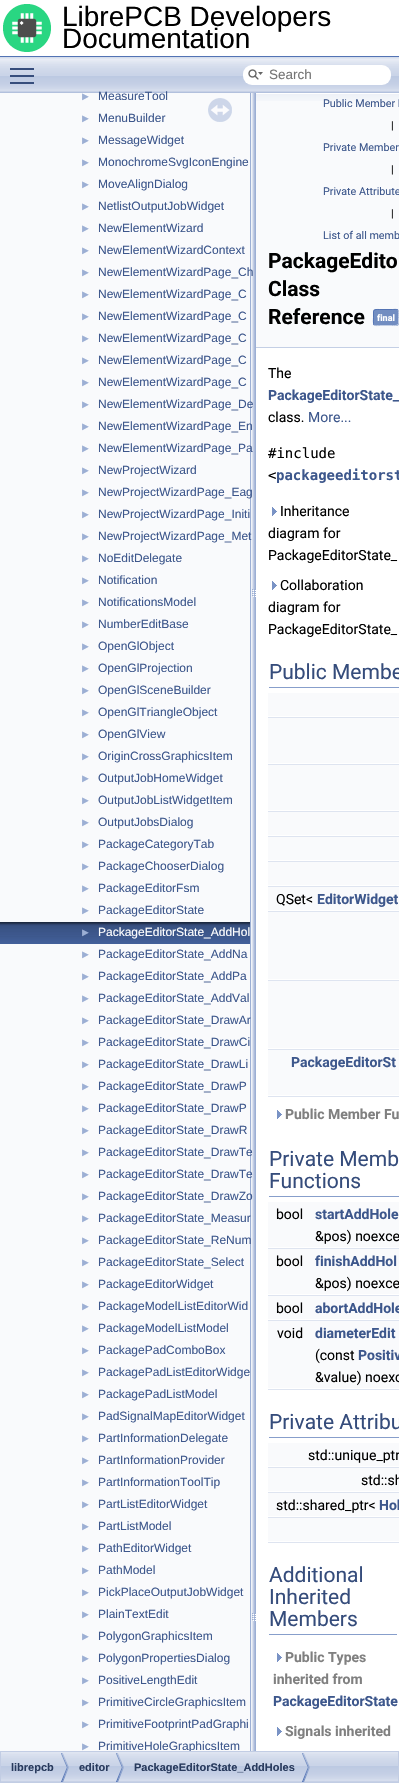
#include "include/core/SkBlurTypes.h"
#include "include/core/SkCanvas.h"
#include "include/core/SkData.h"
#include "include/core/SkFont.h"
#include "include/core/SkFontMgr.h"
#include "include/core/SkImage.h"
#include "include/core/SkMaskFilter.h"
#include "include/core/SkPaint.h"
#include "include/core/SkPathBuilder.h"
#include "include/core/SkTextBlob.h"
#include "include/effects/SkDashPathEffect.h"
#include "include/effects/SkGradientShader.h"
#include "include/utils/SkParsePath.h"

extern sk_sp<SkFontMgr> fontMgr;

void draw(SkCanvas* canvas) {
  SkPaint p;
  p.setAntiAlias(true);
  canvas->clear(SK_ColorWHITE);
  p.setColor(SkColorSetRGB(83, 115, 180));
  canvas->drawRect(SkRect::MakeLTRB(0, 56, 399, 57), p);
  canvas->drawImageRect(SkImages::DeferredFromEncodedData(SkData::MakeFromFileName("images/1.png")), SkRect::MakeLTRB(3, 4, 51, 52), SkSamplingOptions());
  canvas->drawImageRect(SkImages::DeferredFromEncodedData(SkData::MakeFromFileName("images/2.png")), SkRect::MakeLTRB(0, 57, 399, 93), SkSamplingOptions());
  p.setColor(SkColorSetRGB(54, 77, 124));
  canvas->drawRect(SkRect::MakeLTRB(10, 75, 34, 77), p);
  canvas->drawRect(SkRect::MakeLTRB(10, 68, 34, 70), p);
  canvas->drawRect(SkRect::MakeLTRB(10, 82, 34, 84), p);
  p.setColor(SK_ColorWHITE);
  canvas->drawRoundRect(SkRect::MakeLTRB(243, 65, 391, 85), 9, 9, p);
  canvas->drawImageRect(SkImages::DeferredFromEncodedData(SkData::MakeFromFileName("images/3.png")), SkRect::MakeLTRB(248, 69, 263, 80), SkSamplingOptions());
  p.setColor(SkColorSetRGB(249, 250, 252));
  canvas->drawRect(SkRect::MakeLTRB(0, 93, 250, 1751), p);
  canvas->drawImageRect(SkImages::DeferredFromEncodedData(SkData::MakeFromFileName("images/4.png")), SkRect::MakeLTRB(0, 922, 250, 944), SkSamplingOptions());
  canvas->drawImageRect(SkImages::DeferredFromEncodedData(SkData::MakeFromFileName("images/5.png")), SkRect::MakeLTRB(208, 98, 232, 122), SkSamplingOptions());
  canvas->drawImageRect(SkImages::DeferredFromEncodedData(SkData::MakeFromFileName("images/6.png")), SkRect::MakeLTRB(250, 93, 256, 1751), SkSamplingOptions());
  canvas->drawRect(SkRect::MakeLTRB(256, 101, 399, 347), p);
  canvas->drawImageRect(SkImages::DeferredFromEncodedData(SkData::MakeFromFileName("images/7.png")), SkRect::MakeLTRB(256, 93, 399, 101), SkSamplingOptions());
  p.setColor(SkColorSetRGB(196, 207, 229));
  canvas->drawRect(SkRect::MakeLTRB(256, 347, 399, 348), p);
  p.setColor(SkColorSetRGB(114, 141, 193));
  canvas->drawRoundRect(SkRect::MakeLTRB(373, 309, 399, 326), 3, 3, p);
  p.setStyle(SkPaint::kStroke_Style);
  p.setStrokeWidth(1);
  p.setColor(SkColorSetRGB(196, 207, 229));
  canvas->drawPath(SkPathBuilder().moveTo(398, 310).cubicTo(399, 311.5f, 398.5f, 316, 398.5f, 317.5f).lineTo(398.5f, 323.5f).cubicTo(398, 326, 394.5f, 325.5f, 392.5f, 325.5f).lineTo(379.5f, 325.5f).cubicTo(378, 325.5f, 375.5f, 326, 374, 325).detach(), p);
  p.setColor(SkColorSetRGB(83, 115, 180));
  canvas->drawPath(SkPathBuilder().moveTo(374, 325).cubicTo(373, 323.5f, 373.5f, 319, 373.5f, 317.5f).lineTo(373.5f, 311.5f).cubicTo(374, 309, 377.5f, 309.5f, 379.5f, 309.5f).lineTo(392.5f, 309.5f).cubicTo(394, 309.5f, 396.5f, 309, 398, 310).detach(), p);
  canvas->drawImageRect(SkImages::DeferredFromEncodedData(SkData::MakeFromFileName("images/8.png")), SkRect::MakeLTRB(272, 507, 277, 516), SkSamplingOptions());
  canvas->drawImageRect(SkImages::DeferredFromEncodedData(SkData::MakeFromFileName("images/8.png")), SkRect::MakeLTRB(272, 581, 277, 590), SkSamplingOptions());
  p.setStyle(SkPaint::kFill_Style);
  p.setColor(SkColorSetRGB(135, 158, 203));
  canvas->drawRect(SkRect::MakeLTRB(269, 687, 399, 688), p);
  p.setColor(SkColorSetRGB(249, 250, 252));
  canvas->drawRect(SkRect::MakeLTRB(268, 693, 399, 716), p);
  p.setColor(SkColorSetRGB(222, 228, 240));
  canvas->drawRect(SkRect::MakeLTRB(268, 717, 399, 718), p);
  p.setColor(SkColorSetRGB(249, 250, 252));
  canvas->drawRect(SkRect::MakeLTRB(268, 718, 399, 763), p);
  p.setColor(SkColorSetRGB(222, 228, 240));
  canvas->drawRect(SkRect::MakeLTRB(268, 764, 399, 765), p);
  p.setColor(SkColorSetRGB(249, 250, 252));
  canvas->drawRect(SkRect::MakeLTRB(268, 765, 399, 810), p);
  p.setColor(SkColorSetRGB(222, 228, 240));
  canvas->drawRect(SkRect::MakeLTRB(268, 811, 399, 812), p);
  p.setColor(SkColorSetRGB(249, 250, 252));
  canvas->drawRect(SkRect::MakeLTRB(268, 812, 399, 835), p);
  p.setColor(SkColorSetRGB(222, 228, 240));
  canvas->drawRect(SkRect::MakeLTRB(268, 836, 399, 837), p);
  p.setColor(SkColorSetRGB(249, 250, 252));
  canvas->drawRect(SkRect::MakeLTRB(268, 837, 399, 860), p);
  p.setColor(SkColorSetRGB(222, 228, 240));
  canvas->drawRect(SkRect::MakeLTRB(268, 861, 399, 862), p);
  p.setColor(SkColorSetRGB(249, 250, 252));
  canvas->drawRect(SkRect::MakeLTRB(268, 862, 399, 885), p);
  p.setColor(SkColorSetRGB(222, 228, 240));
  canvas->drawRect(SkRect::MakeLTRB(268, 886, 399, 887), p);
  p.setColor(SkColorSetRGB(249, 250, 252));
  canvas->drawRect(SkRect::MakeLTRB(268, 887, 399, 910), p);
  p.setColor(SkColorSetRGB(222, 228, 240));
  canvas->drawRect(SkRect::MakeLTRB(268, 911, 399, 912), p);
  p.setColor(SkColorSetRGB(249, 250, 252));
  canvas->drawRect(SkRect::MakeLTRB(268, 912, 399, 979), p);
  p.setColor(SkColorSetRGB(222, 228, 240));
  canvas->drawRect(SkRect::MakeLTRB(268, 980, 399, 981), p);
  p.setColor(SkColorSetRGB(249, 250, 252));
  canvas->drawRect(SkRect::MakeLTRB(268, 981, 399, 1048), p);
  p.setColor(SkColorSetRGB(222, 228, 240));
  canvas->drawRect(SkRect::MakeLTRB(268, 1049, 399, 1050), p);
  p.setColor(SkColorSetRGB(249, 250, 252));
  canvas->drawRect(SkRect::MakeLTRB(268, 1050, 399, 1095), p);
  p.setColor(SkColorSetRGB(222, 228, 240));
  canvas->drawRect(SkRect::MakeLTRB(268, 1096, 399, 1097), p);
  canvas->drawImageRect(SkImages::DeferredFromEncodedData(SkData::MakeFromFileName("images/8.png")), SkRect::MakeLTRB(277, 1110, 282, 1119), SkSamplingOptions());
  p.setColor(SkColorSetRGB(135, 158, 203));
  canvas->drawRect(SkRect::MakeLTRB(269, 1196, 399, 1197), p);
  p.setColor(SkColorSetRGB(249, 250, 252));
  canvas->drawRect(SkRect::MakeLTRB(268, 1202, 399, 1247), p);
  p.setColor(SkColorSetRGB(222, 228, 240));
  canvas->drawRect(SkRect::MakeLTRB(268, 1248, 399, 1249), p);
  p.setColor(SkColorSetRGB(249, 250, 252));
  canvas->drawRect(SkRect::MakeLTRB(268, 1249, 399, 1294), p);
  p.setColor(SkColorSetRGB(222, 228, 240));
  canvas->drawRect(SkRect::MakeLTRB(268, 1295, 399, 1296), p);
  p.setColor(SkColorSetRGB(249, 250, 252));
  canvas->drawRect(SkRect::MakeLTRB(268, 1296, 399, 1319), p);
  p.setColor(SkColorSetRGB(222, 228, 240));
  canvas->drawRect(SkRect::MakeLTRB(268, 1320, 399, 1321), p);
  p.setColor(SkColorSetRGB(249, 250, 252));
  canvas->drawRect(SkRect::MakeLTRB(268, 1321, 399, 1388), p);
  p.setColor(SkColorSetRGB(222, 228, 240));
  canvas->drawRect(SkRect::MakeLTRB(268, 1389, 399, 1390), p);
  p.setColor(SkColorSetRGB(135, 158, 203));
  canvas->drawRect(SkRect::MakeLTRB(269, 1437, 399, 1438), p);
  p.setColor(SkColorSetRGB(249, 250, 252));
  canvas->drawRect(SkRect::MakeLTRB(268, 1443, 399, 1466), p);
  p.setColor(SkColorSetRGB(222, 228, 240));
  canvas->drawRect(SkRect::MakeLTRB(268, 1467, 399, 1468), p);
  p.setColor(SkColorSetRGB(249, 250, 252));
  canvas->drawRect(SkRect::MakeLTRB(268, 1468, 399, 1491), p);
  p.setColor(SkColorSetRGB(222, 228, 240));
  canvas->drawRect(SkRect::MakeLTRB(268, 1492, 399, 1493), p);
  p.setColor(SkColorSetRGB(249, 250, 252));
  canvas->drawRect(SkRect::MakeLTRB(268, 1493, 399, 1516), p);
  p.setColor(SkColorSetRGB(222, 228, 240));
  canvas->drawRect(SkRect::MakeLTRB(268, 1517, 399, 1518), p);
  p.setColor(SkColorSetRGB(249, 250, 252));
  canvas->drawRect(SkRect::MakeLTRB(268, 1518, 399, 1541), p);
  p.setColor(SkColorSetRGB(222, 228, 240));
  canvas->drawRect(SkRect::MakeLTRB(268, 1542, 399, 1543), p);
  p.setColor(SkColorSetRGB(135, 158, 203));
  canvas->drawRect(SkRect::MakeLTRB(269, 1634, 397, 1635), p);
  canvas->drawImageRect(SkImages::DeferredFromEncodedData(SkData::MakeFromFileName("images/8.png")), SkRect::MakeLTRB(277, 1653, 282, 1662), SkSamplingOptions());
  canvas->drawImageRect(SkImages::DeferredFromEncodedData(SkData::MakeFromFileName("images/8.png")), SkRect::MakeLTRB(277, 1727, 282, 1736), SkSamplingOptions());
  canvas->drawImageRect(SkImages::DeferredFromEncodedData(SkData::MakeFromFileName("images/9.png")), SkRect::MakeLTRB(1, 1752, 398, 1782), SkSamplingOptions());
  p.setStyle(SkPaint::kStroke_Style);
  p.setColor(SkColorSetRGB(194, 205, 228));
  canvas->drawRect(SkRect::MakeLTRB(0.5f, 1751.5f, 398.5f, 1782.5f), p);
  canvas->drawImageRect(SkImages::DeferredFromEncodedData(SkData::MakeFromFileName("images/10.png")), SkRect::MakeLTRB(61, 1753, 69, 1782), SkSamplingOptions());
  canvas->drawImageRect(SkImages::DeferredFromEncodedData(SkData::MakeFromFileName("images/10.png")), SkRect::MakeLTRB(116, 1753, 124, 1782), SkSamplingOptions());
  canvas->drawImageRect(SkImages::DeferredFromEncodedData(SkData::MakeFromFileName("images/10.png")), SkRect::MakeLTRB(302, 1753, 310, 1782), SkSamplingOptions());
  SkFont font1(fontMgr->matchFamilyStyle("Liberation Sans", SkFontStyle::Normal()), 28);
  font1.setSubpixel(true);
  p.setStyle(SkPaint::kFill_Style);
  p.setColor(SK_ColorBLACK);
  canvas->drawString("LibrePCB Developers", 62, 26, font1, p);
  canvas->drawString("Documentation", 62, 48, font1, p);
  SkFont font2(fontMgr->matchFamilyStyle("Liberation Sans", SkFontStyle::Normal()), 13.5f);
  font2.setSubpixel(true);
  p.setColor(SkColorSetRGB(117, 117, 117));
  canvas->drawString("Search", 269, 79, font2, p);
  SkFont font3(fontMgr->matchFamilyStyle("Liberation Sans", SkFontStyle::Normal()), 11);
  font3.setSubpixel(true);
  p.setColor(SkColorSetRGB(156, 175, 212));
  canvas->drawString("►", 80, 100, font3, p);
  SkFont font4(fontMgr->matchFamilyStyle("Liberation Sans", SkFontStyle::Normal()), 12);
  font4.setSubpixel(true);
  p.setColor(SkColorSetRGB(61, 87, 140));
  canvas->drawString("MeasureTool", 98, 100, font4, p);
  p.setColor(SkColorSetRGB(156, 175, 212));
  canvas->drawString("►", 80, 122, font3, p);
  p.setColor(SkColorSetRGB(61, 87, 140));
  canvas->drawString("MenuBuilder", 98, 122, font4, p);
  p.setColor(SkColorSetRGB(156, 175, 212));
  canvas->drawString("►", 80, 144, font3, p);
  p.setColor(SkColorSetRGB(61, 87, 140));
  canvas->drawString("MessageWidget", 98, 144, font4, p);
  p.setColor(SkColorSetRGB(156, 175, 212));
  canvas->drawString("►", 80, 166, font3, p);
  p.setColor(SkColorSetRGB(61, 87, 140));
  canvas->drawString("MonochromeSvgIconEngine", 98, 166, font4, p);
  p.setColor(SkColorSetRGB(156, 175, 212));
  canvas->drawString("►", 80, 188, font3, p);
  p.setColor(SkColorSetRGB(61, 87, 140));
  canvas->drawString("MoveAlignDialog", 98, 188, font4, p);
  p.setColor(SkColorSetRGB(156, 175, 212));
  canvas->drawString("►", 80, 210, font3, p);
  p.setColor(SkColorSetRGB(61, 87, 140));
  canvas->drawString("NetlistOutputJobWidget", 98, 210, font4, p);
  p.setColor(SkColorSetRGB(156, 175, 212));
  canvas->drawString("►", 80, 232, font3, p);
  p.setColor(SkColorSetRGB(61, 87, 140));
  canvas->drawString("NewElementWizard", 98, 232, font4, p);
  p.setColor(SkColorSetRGB(156, 175, 212));
  canvas->drawString("►", 80, 254, font3, p);
  p.setColor(SkColorSetRGB(61, 87, 140));
  canvas->drawString("NewElementWizardContext", 98, 254, font4, p);
  p.setColor(SkColorSetRGB(156, 175, 212));
  canvas->drawString("►", 80, 276, font3, p);
  p.setColor(SkColorSetRGB(61, 87, 140));
  canvas->drawString("NewElementWizardPage_Ch", 98, 276, font4, p);
  p.setColor(SkColorSetRGB(156, 175, 212));
  canvas->drawString("►", 80, 298, font3, p);
  p.setColor(SkColorSetRGB(61, 87, 140));
  canvas->drawString("NewElementWizardPage_C", 98, 298, font4, p);
  p.setColor(SkColorSetRGB(156, 175, 212));
  canvas->drawString("►", 80, 320, font3, p);
  p.setColor(SkColorSetRGB(61, 87, 140));
  canvas->drawString("NewElementWizardPage_C", 98, 320, font4, p);
  p.setColor(SkColorSetRGB(156, 175, 212));
  canvas->drawString("►", 80, 342, font3, p);
  p.setColor(SkColorSetRGB(61, 87, 140));
  canvas->drawString("NewElementWizardPage_C", 98, 342, font4, p);
  p.setColor(SkColorSetRGB(156, 175, 212));
  canvas->drawString("►", 80, 364, font3, p);
  p.setColor(SkColorSetRGB(61, 87, 140));
  canvas->drawString("NewElementWizardPage_C", 98, 364, font4, p);
  p.setColor(SkColorSetRGB(156, 175, 212));
  canvas->drawString("►", 80, 386, font3, p);
  p.setColor(SkColorSetRGB(61, 87, 140));
  canvas->drawString("NewElementWizardPage_C", 98, 386, font4, p);
  p.setColor(SkColorSetRGB(156, 175, 212));
  canvas->drawString("►", 80, 408, font3, p);
  p.setColor(SkColorSetRGB(61, 87, 140));
  canvas->drawString("NewElementWizardPage_De", 98, 408, font4, p);
  p.setColor(SkColorSetRGB(156, 175, 212));
  canvas->drawString("►", 80, 430, font3, p);
  p.setColor(SkColorSetRGB(61, 87, 140));
  canvas->drawString("NewElementWizardPage_En", 98, 430, font4, p);
  p.setColor(SkColorSetRGB(156, 175, 212));
  canvas->drawString("►", 80, 452, font3, p);
  p.setColor(SkColorSetRGB(61, 87, 140));
  canvas->drawString("NewElementWizardPage_Pa", 98, 452, font4, p);
  p.setColor(SkColorSetRGB(156, 175, 212));
  canvas->drawString("►", 80, 474, font3, p);
  p.setColor(SkColorSetRGB(61, 87, 140));
  canvas->drawString("NewProjectWizard", 98, 474, font4, p);
  p.setColor(SkColorSetRGB(156, 175, 212));
  canvas->drawString("►", 80, 496, font3, p);
  p.setColor(SkColorSetRGB(61, 87, 140));
  canvas->drawString("NewProjectWizardPage_Eag", 98, 496, font4, p);
  p.setColor(SkColorSetRGB(156, 175, 212));
  canvas->drawString("►", 80, 518, font3, p);
  p.setColor(SkColorSetRGB(61, 87, 140));
  canvas->drawString("NewProjectWizardPage_Initi", 98, 518, font4, p);
  p.setColor(SkColorSetRGB(156, 175, 212));
  canvas->drawString("►", 80, 540, font3, p);
  p.setColor(SkColorSetRGB(61, 87, 140));
  canvas->drawString("NewProjectWizardPage_Met", 98, 540, font4, p);
  p.setColor(SkColorSetRGB(156, 175, 212));
  canvas->drawString("►", 80, 562, font3, p);
  p.setColor(SkColorSetRGB(61, 87, 140));
  canvas->drawString("NoEditDelegate", 98, 562, font4, p);
  p.setColor(SkColorSetRGB(156, 175, 212));
  canvas->drawString("►", 80, 584, font3, p);
  p.setColor(SkColorSetRGB(61, 87, 140));
  canvas->drawString("Notification", 98, 584, font4, p);
  p.setColor(SkColorSetRGB(156, 175, 212));
  canvas->drawString("►", 80, 606, font3, p);
  p.setColor(SkColorSetRGB(61, 87, 140));
  canvas->drawString("NotificationsModel", 98, 606, font4, p);
  p.setColor(SkColorSetRGB(156, 175, 212));
  canvas->drawString("►", 80, 628, font3, p);
  p.setColor(SkColorSetRGB(61, 87, 140));
  canvas->drawString("NumberEditBase", 98, 628, font4, p);
  p.setColor(SkColorSetRGB(156, 175, 212));
  canvas->drawString("►", 80, 650, font3, p);
  p.setColor(SkColorSetRGB(61, 87, 140));
  canvas->drawString("OpenGlObject", 98, 650, font4, p);
  p.setColor(SkColorSetRGB(156, 175, 212));
  canvas->drawString("►", 80, 672, font3, p);
  p.setColor(SkColorSetRGB(61, 87, 140));
  canvas->drawString("OpenGlProjection", 98, 672, font4, p);
  p.setColor(SkColorSetRGB(156, 175, 212));
  canvas->drawString("►", 80, 694, font3, p);
  p.setColor(SkColorSetRGB(61, 87, 140));
  canvas->drawString("OpenGlSceneBuilder", 98, 694, font4, p);
  p.setColor(SkColorSetRGB(156, 175, 212));
  canvas->drawString("►", 80, 716, font3, p);
  p.setColor(SkColorSetRGB(61, 87, 140));
  canvas->drawString("OpenGlTriangleObject", 98, 716, font4, p);
  p.setColor(SkColorSetRGB(156, 175, 212));
  canvas->drawString("►", 80, 738, font3, p);
  p.setColor(SkColorSetRGB(61, 87, 140));
  canvas->drawString("OpenGlView", 98, 738, font4, p);
  p.setColor(SkColorSetRGB(156, 175, 212));
  canvas->drawString("►", 80, 760, font3, p);
  p.setColor(SkColorSetRGB(61, 87, 140));
  canvas->drawString("OriginCrossGraphicsItem", 98, 760, font4, p);
  p.setColor(SkColorSetRGB(156, 175, 212));
  canvas->drawString("►", 80, 782, font3, p);
  p.setColor(SkColorSetRGB(61, 87, 140));
  canvas->drawString("OutputJobHomeWidget", 98, 782, font4, p);
  p.setColor(SkColorSetRGB(156, 175, 212));
  canvas->drawString("►", 80, 804, font3, p);
  p.setColor(SkColorSetRGB(61, 87, 140));
  canvas->drawString("OutputJobListWidgetItem", 98, 804, font4, p);
  p.setColor(SkColorSetRGB(156, 175, 212));
  canvas->drawString("►", 80, 826, font3, p);
  p.setColor(SkColorSetRGB(61, 87, 140));
  canvas->drawString("OutputJobsDialog", 98, 826, font4, p);
  p.setColor(SkColorSetRGB(156, 175, 212));
  canvas->drawString("►", 80, 848, font3, p);
  p.setColor(SkColorSetRGB(61, 87, 140));
  canvas->drawString("PackageCategoryTab", 98, 848, font4, p);
  p.setColor(SkColorSetRGB(156, 175, 212));
  canvas->drawString("►", 80, 870, font3, p);
  p.setColor(SkColorSetRGB(61, 87, 140));
  canvas->drawString("PackageChooserDialog", 98, 870, font4, p);
  p.setColor(SkColorSetRGB(156, 175, 212));
  canvas->drawString("►", 80, 892, font3, p);
  p.setColor(SkColorSetRGB(61, 87, 140));
  canvas->drawString("PackageEditorFsm", 98, 892, font4, p);
  p.setColor(SkColorSetRGB(156, 175, 212));
  canvas->drawString("►", 80, 914, font3, p);
  p.setColor(SkColorSetRGB(61, 87, 140));
  canvas->drawString("PackageEditorState", 98, 914, font4, p);
  p.setColor(SkColorSetRGB(156, 175, 212));
  canvas->drawString("►", 80, 936, font3, p);
  p.setColor(SK_ColorWHITE);
  canvas->drawString("PackageEditorState_AddHol", 98, 936, font4, p);
  p.setColor(SkColorSetRGB(156, 175, 212));
  canvas->drawString("►", 80, 958, font3, p);
  p.setColor(SkColorSetRGB(61, 87, 140));
  canvas->drawString("PackageEditorState_AddNa", 98, 958, font4, p);
  p.setColor(SkColorSetRGB(156, 175, 212));
  canvas->drawString("►", 80, 980, font3, p);
  p.setColor(SkColorSetRGB(61, 87, 140));
  canvas->drawString("PackageEditorState_AddPa", 98, 980, font4, p);
  p.setColor(SkColorSetRGB(156, 175, 212));
  canvas->drawString("►", 80, 1002, font3, p);
  p.setColor(SkColorSetRGB(61, 87, 140));
  canvas->drawString("PackageEditorState_AddVal", 98, 1002, font4, p);
  p.setColor(SkColorSetRGB(156, 175, 212));
  canvas->drawString("►", 80, 1024, font3, p);
  p.setColor(SkColorSetRGB(61, 87, 140));
  canvas->drawString("PackageEditorState_DrawAr", 98, 1024, font4, p);
  p.setColor(SkColorSetRGB(156, 175, 212));
  canvas->drawString("►", 80, 1046, font3, p);
  p.setColor(SkColorSetRGB(61, 87, 140));
  canvas->drawString("PackageEditorState_DrawCi", 98, 1046, font4, p);
  p.setColor(SkColorSetRGB(156, 175, 212));
  canvas->drawString("►", 80, 1068, font3, p);
  p.setColor(SkColorSetRGB(61, 87, 140));
  canvas->drawString("PackageEditorState_DrawLi", 98, 1068, font4, p);
  p.setColor(SkColorSetRGB(156, 175, 212));
  canvas->drawString("►", 80, 1090, font3, p);
  p.setColor(SkColorSetRGB(61, 87, 140));
  canvas->drawString("PackageEditorState_DrawP", 98, 1090, font4, p);
  p.setColor(SkColorSetRGB(156, 175, 212));
  canvas->drawString("►", 80, 1112, font3, p);
  p.setColor(SkColorSetRGB(61, 87, 140));
  canvas->drawString("PackageEditorState_DrawP", 98, 1112, font4, p);
  p.setColor(SkColorSetRGB(156, 175, 212));
  canvas->drawString("►", 80, 1134, font3, p);
  p.setColor(SkColorSetRGB(61, 87, 140));
  canvas->drawString("PackageEditorState_DrawR", 98, 1134, font4, p);
  p.setColor(SkColorSetRGB(156, 175, 212));
  canvas->drawString("►", 80, 1156, font3, p);
  p.setColor(SkColorSetRGB(61, 87, 140));
  canvas->drawString("PackageEditorState_DrawTe", 98, 1156, font4, p);
  p.setColor(SkColorSetRGB(156, 175, 212));
  canvas->drawString("►", 80, 1178, font3, p);
  p.setColor(SkColorSetRGB(61, 87, 140));
  canvas->drawString("PackageEditorState_DrawTe", 98, 1178, font4, p);
  p.setColor(SkColorSetRGB(156, 175, 212));
  canvas->drawString("►", 80, 1200, font3, p);
  p.setColor(SkColorSetRGB(61, 87, 140));
  canvas->drawString("PackageEditorState_DrawZo", 98, 1200, font4, p);
  p.setColor(SkColorSetRGB(156, 175, 212));
  canvas->drawString("►", 80, 1222, font3, p);
  p.setColor(SkColorSetRGB(61, 87, 140));
  canvas->drawString("PackageEditorState_Measur", 98, 1222, font4, p);
  p.setColor(SkColorSetRGB(156, 175, 212));
  canvas->drawString("►", 80, 1244, font3, p);
  p.setColor(SkColorSetRGB(61, 87, 140));
  canvas->drawString("PackageEditorState_ReNum", 98, 1244, font4, p);
  p.setColor(SkColorSetRGB(156, 175, 212));
  canvas->drawString("►", 80, 1266, font3, p);
  p.setColor(SkColorSetRGB(61, 87, 140));
  canvas->drawString("PackageEditorState_Select", 98, 1266, font4, p);
  p.setColor(SkColorSetRGB(156, 175, 212));
  canvas->drawString("►", 80, 1288, font3, p);
  p.setColor(SkColorSetRGB(61, 87, 140));
  canvas->drawString("PackageEditorWidget", 98, 1288, font4, p);
  p.setColor(SkColorSetRGB(156, 175, 212));
  canvas->drawString("►", 80, 1310, font3, p);
  p.setColor(SkColorSetRGB(61, 87, 140));
  canvas->drawString("PackageModelListEditorWid", 98, 1310, font4, p);
  p.setColor(SkColorSetRGB(156, 175, 212));
  canvas->drawString("►", 80, 1332, font3, p);
  p.setColor(SkColorSetRGB(61, 87, 140));
  canvas->drawString("PackageModelListModel", 98, 1332, font4, p);
  p.setColor(SkColorSetRGB(156, 175, 212));
  canvas->drawString("►", 80, 1354, font3, p);
  p.setColor(SkColorSetRGB(61, 87, 140));
  canvas->drawString("PackagePadComboBox", 98, 1354, font4, p);
  p.setColor(SkColorSetRGB(156, 175, 212));
  canvas->drawString("►", 80, 1376, font3, p);
  p.setColor(SkColorSetRGB(61, 87, 140));
  canvas->drawString("PackagePadListEditorWidge", 98, 1376, font4, p);
  p.setColor(SkColorSetRGB(156, 175, 212));
  canvas->drawString("►", 80, 1398, font3, p);
  p.setColor(SkColorSetRGB(61, 87, 140));
  canvas->drawString("PackagePadListModel", 98, 1398, font4, p);
  p.setColor(SkColorSetRGB(156, 175, 212));
  canvas->drawString("►", 80, 1420, font3, p);
  p.setColor(SkColorSetRGB(61, 87, 140));
  canvas->drawString("PadSignalMapEditorWidget", 98, 1420, font4, p);
  p.setColor(SkColorSetRGB(156, 175, 212));
  canvas->drawString("►", 80, 1442, font3, p);
  p.setColor(SkColorSetRGB(61, 87, 140));
  canvas->drawString("PartInformationDelegate", 98, 1442, font4, p);
  p.setColor(SkColorSetRGB(156, 175, 212));
  canvas->drawString("►", 80, 1464, font3, p);
  p.setColor(SkColorSetRGB(61, 87, 140));
  canvas->drawString("PartInformationProvider", 98, 1464, font4, p);
  p.setColor(SkColorSetRGB(156, 175, 212));
  canvas->drawString("►", 80, 1486, font3, p);
  p.setColor(SkColorSetRGB(61, 87, 140));
  canvas->drawString("PartInformationToolTip", 98, 1486, font4, p);
  p.setColor(SkColorSetRGB(156, 175, 212));
  canvas->drawString("►", 80, 1508, font3, p);
  p.setColor(SkColorSetRGB(61, 87, 140));
  canvas->drawString("PartListEditorWidget", 98, 1508, font4, p);
  p.setColor(SkColorSetRGB(156, 175, 212));
  canvas->drawString("►", 80, 1530, font3, p);
  p.setColor(SkColorSetRGB(61, 87, 140));
  canvas->drawString("PartListModel", 98, 1530, font4, p);
  p.setColor(SkColorSetRGB(156, 175, 212));
  canvas->drawString("►", 80, 1552, font3, p);
  p.setColor(SkColorSetRGB(61, 87, 140));
  canvas->drawString("PathEditorWidget", 98, 1552, font4, p);
  p.setColor(SkColorSetRGB(156, 175, 212));
  canvas->drawString("►", 80, 1574, font3, p);
  p.setColor(SkColorSetRGB(61, 87, 140));
  canvas->drawString("PathModel", 98, 1574, font4, p);
  p.setColor(SkColorSetRGB(156, 175, 212));
  canvas->drawString("►", 80, 1596, font3, p);
  p.setColor(SkColorSetRGB(61, 87, 140));
  canvas->drawString("PickPlaceOutputJobWidget", 98, 1596, font4, p);
  p.setColor(SkColorSetRGB(156, 175, 212));
  canvas->drawString("►", 80, 1618, font3, p);
  p.setColor(SkColorSetRGB(61, 87, 140));
  canvas->drawString("PlainTextEdit", 98, 1618, font4, p);
  p.setColor(SkColorSetRGB(156, 175, 212));
  canvas->drawString("►", 80, 1640, font3, p);
  p.setColor(SkColorSetRGB(61, 87, 140));
  canvas->drawString("PolygonGraphicsItem", 98, 1640, font4, p);
  p.setColor(SkColorSetRGB(156, 175, 212));
  canvas->drawString("►", 80, 1662, font3, p);
  p.setColor(SkColorSetRGB(61, 87, 140));
  canvas->drawString("PolygonPropertiesDialog", 98, 1662, font4, p);
  p.setColor(SkColorSetRGB(156, 175, 212));
  canvas->drawString("►", 80, 1684, font3, p);
  p.setColor(SkColorSetRGB(61, 87, 140));
  canvas->drawString("PositiveLengthEdit", 98, 1684, font4, p);
  p.setColor(SkColorSetRGB(156, 175, 212));
  canvas->drawString("►", 80, 1706, font3, p);
  p.setColor(SkColorSetRGB(61, 87, 140));
  canvas->drawString("PrimitiveCircleGraphicsItem", 98, 1706, font4, p);
  p.setColor(SkColorSetRGB(156, 175, 212));
  canvas->drawString("►", 80, 1728, font3, p);
  p.setColor(SkColorSetRGB(61, 87, 140));
  canvas->drawString("PrimitiveFootprintPadGraphi", 98, 1728, font4, p);
  p.setColor(SkColorSetRGB(156, 175, 212));
  canvas->drawString("►", 80, 1750, font3, p);
  canvas->save();
  canvas->clipRect(SkRect::MakeLTRB(0, 93, 250, 1751));
  p.setColor(SkColorSetRGB(61, 87, 140));
  canvas->drawString("PrimitiveHoleGraphicsItem", 98, 1750, font4, p);
  canvas->restore();
  SkFont font5(fontMgr->matchFamilyStyle("Roboto", SkFontStyle::Normal()), 10.75f);
  font5.setSubpixel(true);
  canvas->drawString("Public Member F", 323, 107, font5, p);
  p.setColor(SK_ColorBLACK);
  canvas->drawString("|", 391, 129, font5, p);
  p.setColor(SkColorSetRGB(61, 87, 140));
  canvas->drawString("Private Member", 323, 151, font5, p);
  p.setColor(SK_ColorBLACK);
  canvas->drawString("|", 391, 173, font5, p);
  p.setColor(SkColorSetRGB(61, 87, 140));
  canvas->drawString("Private Attribute", 323, 195, font5, p);
  p.setColor(SK_ColorBLACK);
  canvas->drawString("|", 391, 217, font5, p);
  p.setColor(SkColorSetRGB(61, 87, 140));
  canvas->drawString("List of all memb", 323, 239, font5, p);
  SkFont font6(fontMgr->matchFamilyStyle("Roboto", SkFontStyle::Bold()), 21);
  font6.setSubpixel(true);
  p.setColor(SK_ColorBLACK);
  canvas->drawString("PackageEdito", 268, 268, font6, p);
  canvas->drawString("Class", 268, 296, font6, p);
  canvas->drawString("Reference", 268, 324, font6, p);
  SkFont font7(fontMgr->matchFamilyStyle("Roboto", SkFontStyle::Bold()), 9);
  font7.setSubpixel(true);
  p.setColor(SK_ColorWHITE);
  canvas->drawString("final", 377, 321, font7, p);
  SkFont font8(fontMgr->matchFamilyStyle("Roboto", SkFontStyle::Normal()), 14);
  font8.setSubpixel(true);
  p.setColor(SK_ColorBLACK);
  canvas->drawString("The", 268, 378, font8, p);
  SkFont font9(fontMgr->matchFamilyStyle("Roboto", SkFontStyle::Bold()), 14);
  font9.setSubpixel(true);
  p.setColor(SkColorSetRGB(61, 87, 140));
  canvas->drawString("PackageEditorState_", 268, 400, font9, p);
  p.setColor(SK_ColorBLACK);
  canvas->drawString("class.", 268, 422, font8, p);
  p.setColor(SkColorSetRGB(61, 87, 140));
  canvas->drawString("More...", 308, 422, font8, p);
  SkFont font10(fontMgr->matchFamilyStyle("DejaVu Sans Mono", SkFontStyle::Normal()), 14);
  font10.setSubpixel(true);
  p.setColor(SK_ColorBLACK);
  canvas->drawString("#include", 268, 458, font10, p);
  canvas->drawString("<", 268, 480, font10, p);
  SkFont font11(fontMgr->matchFamilyStyle("DejaVu Sans Mono", SkFontStyle::Bold()), 14);
  font11.setSubpixel(true);
  p.setColor(SkColorSetRGB(61, 87, 140));
  canvas->drawString("packageeditorst", 276, 480, font11, p);
  p.setColor(SK_ColorBLACK);
  canvas->drawString("Inheritance", 280, 516, font8, p);
  canvas->drawString("diagram for", 268, 538, font8, p);
  canvas->drawString("PackageEditorState_", 268, 560, font8, p);
  canvas->drawString("Collaboration", 280, 590, font8, p);
  canvas->drawString("diagram for", 268, 612, font8, p);
  canvas->drawString("PackageEditorState_", 268, 634, font8, p);
  SkFont font12(fontMgr->matchFamilyStyle("Roboto", SkFontStyle::Normal()), 21);
  font12.setSubpixel(true);
  p.setColor(SkColorSetRGB(53, 76, 123));
  canvas->drawString("Public Membe", 269, 679, font12, p);
  p.setColor(SK_ColorBLACK);
  canvas->drawString("QSet<", 276, 904, font8, p);
  p.setColor(SkColorSetRGB(61, 87, 140));
  canvas->drawString("EditorWidget", 317, 904, font9, p);
  canvas->drawString("PackageEditorSt", 291, 1067, font9, p);
  p.setColor(SkColorSetRGB(128, 128, 128));
  canvas->drawString("Public Member Fu", 285, 1119, font9, p);
  p.setColor(SkColorSetRGB(53, 76, 123));
  canvas->drawString("Private Memb", 269, 1166, font12, p);
  canvas->drawString("Functions", 269, 1188, font12, p);
  p.setColor(SK_ColorBLACK);
  canvas->drawString("bool", 276, 1219, font8, p);
  p.setColor(SkColorSetRGB(61, 87, 140));
  canvas->drawString("startAddHole", 315, 1219, font9, p);
  p.setColor(SK_ColorBLACK);
  canvas->drawString("&pos) noexce", 315, 1241, font8, p);
  canvas->drawString("bool", 276, 1266, font8, p);
  p.setColor(SkColorSetRGB(61, 87, 140));
  canvas->drawString("finishAddHol", 315, 1266, font9, p);
  p.setColor(SK_ColorBLACK);
  canvas->drawString("&pos) noexce", 315, 1288, font8, p);
  canvas->drawString("bool", 276, 1313, font8, p);
  p.setColor(SkColorSetRGB(61, 87, 140));
  canvas->drawString("abortAddHole", 315, 1313, font9, p);
  p.setColor(SK_ColorBLACK);
  canvas->drawString("void", 277, 1338, font8, p);
  p.setColor(SkColorSetRGB(61, 87, 140));
  canvas->drawString("diameterEdit", 315, 1338, font9, p);
  p.setColor(SK_ColorBLACK);
  canvas->drawString("(const", 315, 1360, font8, p);
  p.setColor(SkColorSetRGB(61, 87, 140));
  canvas->drawString("Positiv", 358, 1360, font9, p);
  p.setColor(SK_ColorBLACK);
  canvas->drawString("&value) noexc", 315, 1382, font8, p);
  p.setColor(SkColorSetRGB(53, 76, 123));
  canvas->drawString("Private Attribu", 269, 1429, font12, p);
  p.setColor(SK_ColorBLACK);
  canvas->drawString("std::unique_ptr", 308, 1460, font8, p);
  canvas->drawString("std::sh", 361, 1485, font8, p);
  canvas->drawString("std::shared_ptr<", 276, 1510, font8, p);
  p.setColor(SkColorSetRGB(61, 87, 140));
  canvas->drawString("Hol", 379, 1510, font9, p);
  p.setColor(SkColorSetRGB(53, 76, 123));
  canvas->drawString("Additional", 269, 1582, font12, p);
  canvas->drawString("Inherited", 269, 1604, font12, p);
  canvas->drawString("Members", 269, 1626, font12, p);
  p.setColor(SkColorSetRGB(128, 128, 128));
  canvas->drawString("Public Types", 285, 1662, font9, p);
  canvas->drawString("inherited from", 273, 1684, font9, p);
  p.setColor(SkColorSetRGB(61, 87, 140));
  canvas->drawString("PackageEditorState", 273, 1706, font9, p);
  p.setColor(SkColorSetRGB(128, 128, 128));
  canvas->drawString("Signals inherited", 285, 1736, font9, p);
  SkFont font13(fontMgr->matchFamilyStyle("Liberation Sans", SkFontStyle::Bold()), 11);
  font13.setSubpixel(true);
  p.setColor(SkColorSetRGB(40, 58, 93));
  canvas->drawString("librepcb", 11, 1771, font13, p);
  canvas->drawString("editor", 79, 1771, font13, p);
  canvas->drawString("PackageEditorState_AddHoles", 134, 1771, font13, p);
}
